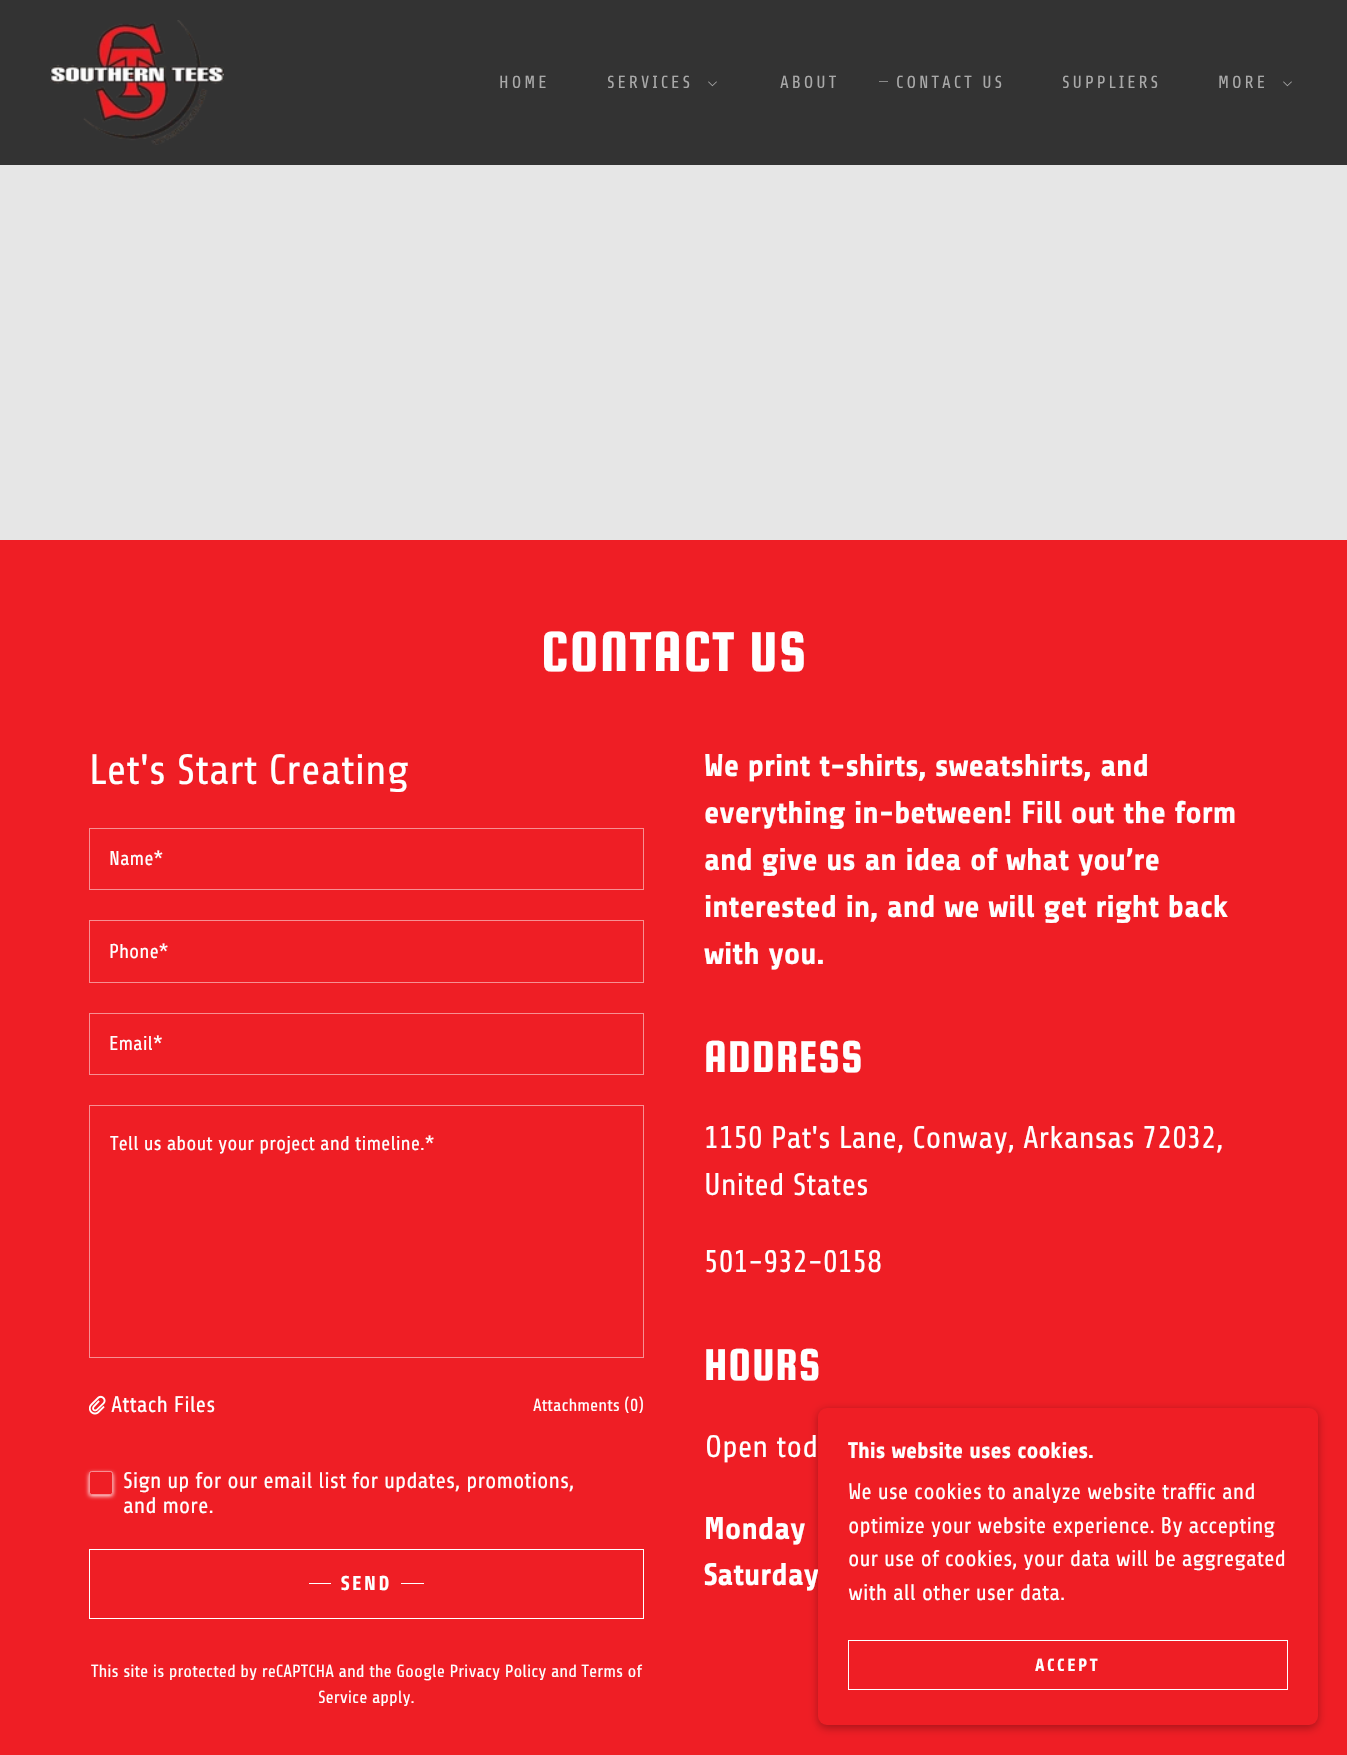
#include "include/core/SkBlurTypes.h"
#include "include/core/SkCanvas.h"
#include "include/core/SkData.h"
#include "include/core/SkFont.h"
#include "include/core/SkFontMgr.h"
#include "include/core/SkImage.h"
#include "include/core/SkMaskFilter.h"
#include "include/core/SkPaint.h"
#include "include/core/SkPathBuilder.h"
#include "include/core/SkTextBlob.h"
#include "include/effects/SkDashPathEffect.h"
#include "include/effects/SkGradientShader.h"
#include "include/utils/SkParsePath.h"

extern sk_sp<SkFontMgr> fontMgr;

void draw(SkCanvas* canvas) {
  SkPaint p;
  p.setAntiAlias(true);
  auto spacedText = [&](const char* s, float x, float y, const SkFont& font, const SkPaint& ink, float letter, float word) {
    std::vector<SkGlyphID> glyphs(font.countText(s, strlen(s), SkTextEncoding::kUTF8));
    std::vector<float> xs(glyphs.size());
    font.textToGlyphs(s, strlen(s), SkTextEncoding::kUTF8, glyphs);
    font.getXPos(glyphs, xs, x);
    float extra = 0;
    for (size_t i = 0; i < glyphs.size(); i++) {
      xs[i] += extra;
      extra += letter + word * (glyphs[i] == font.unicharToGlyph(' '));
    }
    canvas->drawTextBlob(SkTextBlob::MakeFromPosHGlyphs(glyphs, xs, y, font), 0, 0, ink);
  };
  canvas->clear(SkColorSetRGB(239, 30, 37));
  p.setColor(SkColorSetRGB(51, 51, 51));
  canvas->drawRect(SkRect::MakeLTRB(0, 0, 1347, 165), p);
  canvas->drawImageRect(SkImages::DeferredFromEncodedData(SkData::MakeFromFileName("images/1.png")), SkRect::MakeLTRB(50, 20, 224, 145), SkSamplingOptions());
  canvas->drawImageRect(SkImages::DeferredFromEncodedData(SkData::MakeFromFileName("images/2.png")), SkRect::MakeLTRB(708, 81, 717, 87), SkSamplingOptions());
  p.setColor(SkColorSetRGB(137, 137, 137));
  canvas->drawRect(SkRect::MakeLTRB(879, 81, 888, 82), p);
  canvas->drawImageRect(SkImages::DeferredFromEncodedData(SkData::MakeFromFileName("images/2.png")), SkRect::MakeLTRB(1283, 81, 1292, 87), SkSamplingOptions());
  p.setColor(SkColorSetRGB(230, 230, 230));
  canvas->drawRect(SkRect::MakeLTRB(0, 165, 1347, 540), p);
  p.setStyle(SkPaint::kStroke_Style);
  p.setStrokeWidth(1);
  p.setColor(SkColorSetRGB(247, 143, 146));
  canvas->drawRect(SkRect::MakeLTRB(89.5f, 828.5f, 643.5f, 889.5f), p);
  canvas->drawRect(SkRect::MakeLTRB(89.5f, 920.5f, 643.5f, 982.5f), p);
  canvas->drawRect(SkRect::MakeLTRB(89.5f, 1013.5f, 643.5f, 1074.5f), p);
  canvas->drawRect(SkRect::MakeLTRB(89.5f, 1105.5f, 643.5f, 1357.5f), p);
  canvas->drawImageRect(SkImages::DeferredFromEncodedData(SkData::MakeFromFileName("images/3.png")), SkRect::MakeLTRB(89, 1395, 106, 1415), SkSamplingOptions());
  canvas->save();
  canvas->clipPath(SkPathBuilder(SkPathFillType::kEvenOdd).moveTo(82, 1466).lineTo(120, 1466).lineTo(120, 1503).lineTo(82, 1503).close().moveTo(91.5f, 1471).lineTo(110.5f, 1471).cubicTo(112, 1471, 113, 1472, 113, 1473.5f).lineTo(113, 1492.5f).cubicTo(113, 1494, 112, 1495, 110.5f, 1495).lineTo(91.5f, 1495).cubicTo(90, 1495, 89, 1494, 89, 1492.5f).lineTo(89, 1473.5f).cubicTo(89, 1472, 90, 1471, 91.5f, 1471).close().detach(), true);
  p.setStyle(SkPaint::kFill_Style);
  p.setColor(SK_ColorWHITE);
  p.setMaskFilter(SkMaskFilter::MakeBlur(kNormal_SkBlurStyle, 2));
  canvas->drawRoundRect(SkRect::MakeLTRB(89, 1473, 113, 1496), 2.5f, 2.5f, p);
  p.setMaskFilter(nullptr);
  canvas->restore();
  p.setStyle(SkPaint::kStroke_Style);
  p.setColor(SkColorSetARGB(128, 255, 255, 255));
  canvas->drawRoundRect(SkRect::MakeLTRB(89.5f, 1471.5f, 112.5f, 1494.5f), 2, 2, p);
  p.setColor(SK_ColorWHITE);
  canvas->drawRect(SkRect::MakeLTRB(89.5f, 1549.5f, 643.5f, 1618.5f), p);
  p.setStyle(SkPaint::kFill_Style);
  canvas->drawRect(SkRect::MakeLTRB(309, 1583, 331, 1584), p);
  canvas->drawRect(SkRect::MakeLTRB(401, 1583, 424, 1584), p);
  p.setColor(SkColorSetARGB(77, 0, 0, 0));
  p.setMaskFilter(SkMaskFilter::MakeBlur(kNormal_SkBlurStyle, 4));
  canvas->drawRoundRect(SkRect::MakeLTRB(818, 1410, 1318, 1728), 9, 9, p);
  p.setMaskFilter(nullptr);
  SkFont font1(fontMgr->matchFamilyStyle("Share", SkFontStyle::Normal()), 17.5f);
  font1.setSubpixel(true);
  p.setColor(SkColorSetRGB(169, 169, 169));
  spacedText("HOME", 499, 88, font1, p, 3, 0);
  spacedText("SERVICES", 607, 88, font1, p, 3, 0);
  spacedText("ABOUT", 780, 88, font1, p, 3, 0);
  spacedText("CONTACT US", 896, 88, font1, p, 3, 0);
  spacedText("SUPPLIERS", 1062, 88, font1, p, 3, 0);
  spacedText("MORE", 1218, 88, font1, p, 3, 0);
  SkFont font2(fontMgr->matchFamilyStyle("Squada One", SkFontStyle::Normal()), 60);
  font2.setSubpixel(true);
  p.setColor(SK_ColorWHITE);
  spacedText("CONTACT US", 541, 671, font2, p, 1.25f, 0);
  SkFont font3(fontMgr->matchFamilyStyle("Share", SkFontStyle::Normal()), 42.5f);
  font3.setSubpixel(true);
  canvas->drawString("Let's Start Creating", 89, 784, font3, p);
  SkFont font4(fontMgr->matchFamilyStyle("Share", SkFontStyle::Normal()), 20);
  font4.setSubpixel(true);
  canvas->drawString("Name*", 109, 865, font4, p);
  canvas->drawString("Phone*", 109, 958, font4, p);
  canvas->drawString("Email*", 109, 1050, font4, p);
  canvas->drawString("Tell us about your project and timeline.*", 110, 1150, font4, p);
  SkFont font5(fontMgr->matchFamilyStyle("Share", SkFontStyle::Normal()), 22.5f);
  font5.setSubpixel(true);
  canvas->drawString("Attach Files", 111, 1412, font5, p);
  canvas->drawString("Attachments (0)", 533, 1411, font1, p);
  canvas->drawString("Sign up for our email list for updates, promotions,", 123, 1488, font5, p);
  canvas->drawString("and more.", 123, 1513, font5, p);
  SkFont font6(fontMgr->matchFamilyStyle("Share", SkFontStyle::Bold()), 20);
  font6.setSubpixel(true);
  spacedText("SEND", 341, 1590, font6, p, 2.5f, 0);
  canvas->drawString("This site is protected by reCAPTCHA and the Google Privacy Policy and Terms of", 91, 1677, font1, p);
  canvas->drawString("Service apply.", 318, 1703, font1, p);
  SkFont font7(fontMgr->matchFamilyStyle("Share", SkFontStyle::Bold()), 31.25f);
  font7.setSubpixel(true);
  canvas->drawString("We print t-shirts, sweatshirts, and", 704, 776, font7, p);
  canvas->drawString("everything in-between! Fill out the form", 704, 823, font7, p);
  canvas->drawString("and give us an idea of what you’re", 704, 870, font7, p);
  canvas->drawString("interested in, and we will get right back", 704, 917, font7, p);
  canvas->drawString("with you.", 704, 964, font7, p);
  SkFont font8(fontMgr->matchFamilyStyle("Squada One", SkFontStyle::Normal()), 47.5f);
  font8.setSubpixel(true);
  spacedText("ADDRESS", 704, 1072, font8, p, 1, 0);
  SkFont font9(fontMgr->matchFamilyStyle("Share", SkFontStyle::Normal()), 31.25f);
  font9.setSubpixel(true);
  canvas->drawString("1150 Pat's Lane, Conway, Arkansas 72032,", 704, 1148, font9, p);
  canvas->drawString("United States", 704, 1195, font9, p);
  canvas->drawString("501-932-0158", 704, 1272, font9, p);
  spacedText("HOURS", 704, 1380, font8, p, 1, 0);
  canvas->drawString("Open tod", 705, 1457, font9, p);
  canvas->drawString("Monday", 704, 1539, font7, p);
  canvas->drawString("Saturday", 704, 1585, font7, p);
  p.setColor(SkColorSetRGB(239, 30, 37));
  canvas->drawRoundRect(SkRect::MakeLTRB(818, 1408, 1318, 1725), 9, 9, p);
  SkFont font10(fontMgr->matchFamilyStyle("Share", SkFontStyle::Bold()), 22.5f);
  font10.setSubpixel(true);
  p.setColor(SK_ColorWHITE);
  canvas->drawString("This website uses cookies.", 848, 1458, font10, p);
  canvas->drawString("We use cookies to analyze website traffic and", 848, 1499, font5, p);
  canvas->drawString("optimize your website experience. By accepting", 848, 1533, font5, p);
  canvas->drawString("our use of cookies, your data will be aggregated", 848, 1566, font5, p);
  canvas->drawString("with all other user data.", 848, 1600, font5, p);
  p.setStyle(SkPaint::kStroke_Style);
  canvas->drawRect(SkRect::MakeLTRB(848.5f, 1640.5f, 1287.5f, 1689.5f), p);
  SkFont font11(fontMgr->matchFamilyStyle("Share", SkFontStyle::Bold()), 17.5f);
  font11.setSubpixel(true);
  p.setStyle(SkPaint::kFill_Style);
  spacedText("ACCEPT", 1035, 1671, font11, p, 2.5f, 0);
}
